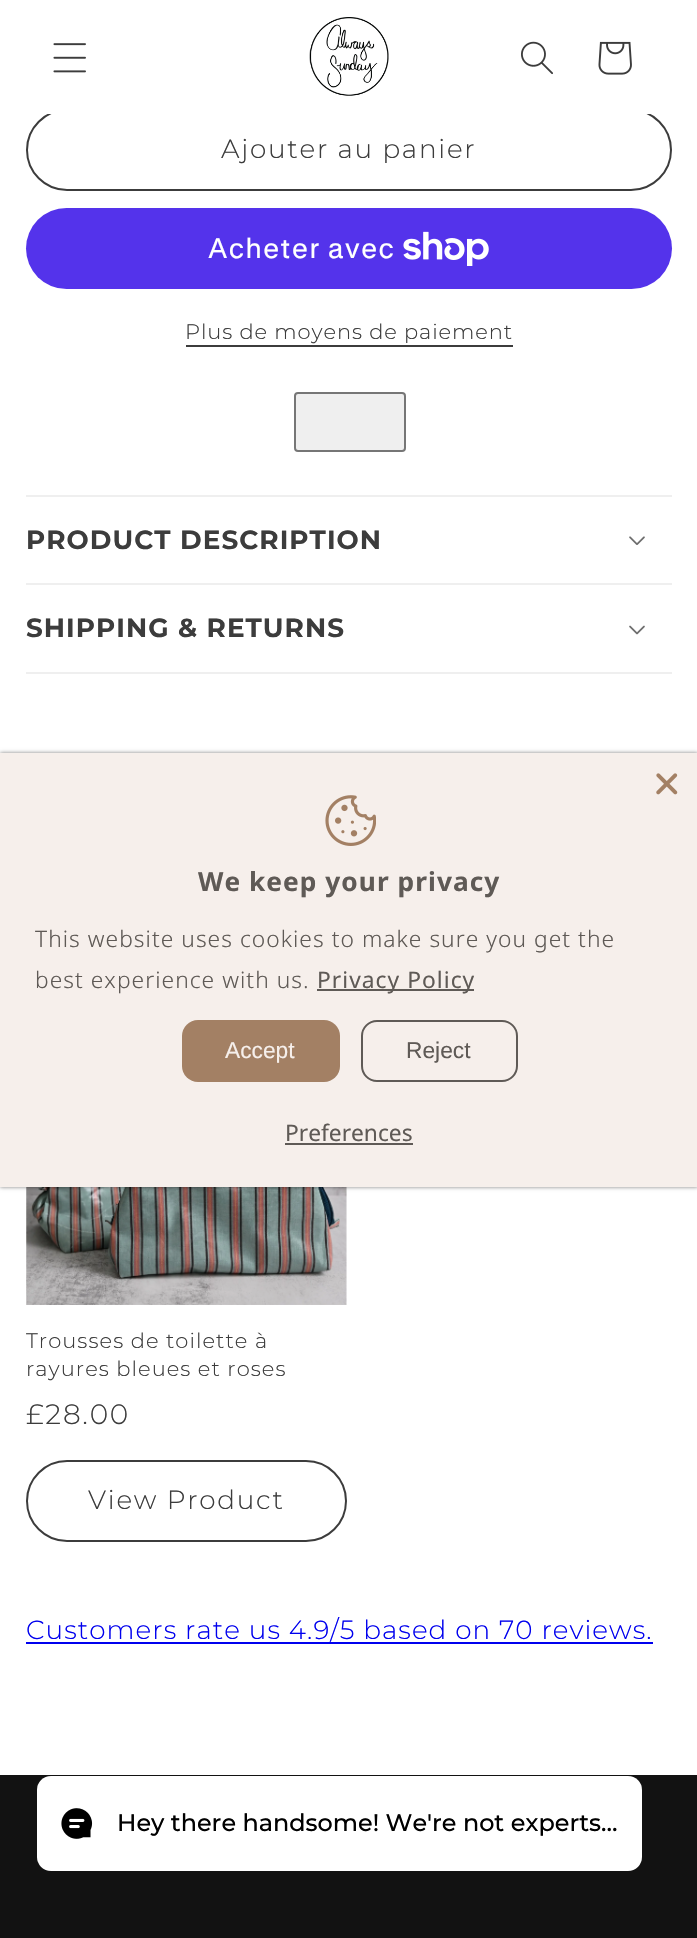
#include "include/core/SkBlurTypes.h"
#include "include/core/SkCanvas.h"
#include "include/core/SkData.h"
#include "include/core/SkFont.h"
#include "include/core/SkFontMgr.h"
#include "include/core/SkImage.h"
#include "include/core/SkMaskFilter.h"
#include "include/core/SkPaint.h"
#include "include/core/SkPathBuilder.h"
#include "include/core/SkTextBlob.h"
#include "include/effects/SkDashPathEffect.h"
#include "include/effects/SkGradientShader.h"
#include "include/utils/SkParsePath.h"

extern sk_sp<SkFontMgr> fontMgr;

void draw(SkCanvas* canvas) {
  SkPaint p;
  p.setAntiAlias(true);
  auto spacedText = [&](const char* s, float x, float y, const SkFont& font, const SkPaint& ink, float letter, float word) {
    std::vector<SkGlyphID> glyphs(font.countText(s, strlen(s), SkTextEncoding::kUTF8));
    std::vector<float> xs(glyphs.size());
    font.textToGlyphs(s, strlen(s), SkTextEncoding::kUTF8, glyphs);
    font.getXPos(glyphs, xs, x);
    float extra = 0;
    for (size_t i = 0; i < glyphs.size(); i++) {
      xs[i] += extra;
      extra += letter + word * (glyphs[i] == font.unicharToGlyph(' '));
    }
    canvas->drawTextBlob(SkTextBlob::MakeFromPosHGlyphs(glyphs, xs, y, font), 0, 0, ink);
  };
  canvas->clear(SK_ColorWHITE);
  p.setStyle(SkPaint::kStroke_Style);
  p.setStrokeWidth(2);
  p.setColor(SkColorSetRGB(60, 60, 60));
  canvas->drawRoundRect(SkRect::MakeLTRB(27, 110, 671, 190), 40, 40, p);
  p.setStyle(SkPaint::kFill_Style);
  p.setColor(SK_ColorWHITE);
  canvas->drawRect(SkRect::MakeLTRB(47, 109, 651, 114), p);
  canvas->drawImageRect(SkImages::DeferredFromEncodedData(SkData::MakeFromFileName("images/1.png")), SkRect::MakeLTRB(53, 43, 86, 73), SkSamplingOptions());
  canvas->drawImageRect(SkImages::DeferredFromEncodedData(SkData::MakeFromFileName("images/2.png")), SkRect::MakeLTRB(309, 17, 389, 96), SkSamplingOptions());
  canvas->drawImageRect(SkImages::DeferredFromEncodedData(SkData::MakeFromFileName("images/3.png")), SkRect::MakeLTRB(521, 41, 553, 75), SkSamplingOptions());
  canvas->drawImageRect(SkImages::DeferredFromEncodedData(SkData::MakeFromFileName("images/4.png")), SkRect::MakeLTRB(598, 41, 632, 75), SkSamplingOptions());
  p.setColor(SkColorSetRGB(84, 51, 235));
  canvas->drawRoundRect(SkRect::MakeLTRB(26, 208, 672, 289), 40.5f, 40.5f, p);
  canvas->drawImageRect(SkImages::DeferredFromEncodedData(SkData::MakeFromFileName("images/5.png")), SkRect::MakeLTRB(403, 231, 489, 266), SkSamplingOptions());
  p.setColor(SkColorSetRGB(60, 60, 60));
  canvas->drawRect(SkRect::MakeLTRB(186, 345, 513, 347), p);
  p.setColor(SkColorSetRGB(239, 239, 239));
  canvas->drawRoundRect(SkRect::MakeLTRB(295, 393, 405, 451), 3, 3, p);
  p.setStyle(SkPaint::kStroke_Style);
  p.setColor(SkColorSetRGB(118, 118, 118));
  canvas->drawRoundRect(SkRect::MakeLTRB(295, 393, 405, 451), 3, 3, p);
  p.setStyle(SkPaint::kFill_Style);
  p.setColor(SkColorSetRGB(239, 239, 239));
  canvas->drawRect(SkRect::MakeLTRB(26, 495, 672, 497), p);
  canvas->drawRect(SkRect::MakeLTRB(26, 583, 672, 585), p);
  canvas->drawImageRect(SkImages::DeferredFromEncodedData(SkData::MakeFromFileName("images/6.png")), SkRect::MakeLTRB(629, 536, 645, 545), SkSamplingOptions());
  canvas->drawRect(SkRect::MakeLTRB(26, 672, 672, 674), p);
  canvas->drawImageRect(SkImages::DeferredFromEncodedData(SkData::MakeFromFileName("images/7.png")), SkRect::MakeLTRB(629, 625, 645, 635), SkSamplingOptions());
  canvas->drawImageRect(SkImages::DeferredFromEncodedData(SkData::MakeFromFileName("images/8.png")), SkRect::MakeLTRB(26, 1187, 347, 1305), SkSamplingOptions());
  p.setStyle(SkPaint::kStroke_Style);
  p.setColor(SkColorSetRGB(60, 60, 60));
  canvas->drawRoundRect(SkRect::MakeLTRB(27, 1461, 346, 1541), 40, 40, p);
  p.setStyle(SkPaint::kFill_Style);
  p.setColor(SkColorSetARGB(128, 0, 0, 0));
  p.setMaskFilter(SkMaskFilter::MakeBlur(kNormal_SkBlurStyle, 2));
  canvas->drawRect(SkRect::MakeLTRB(0, 753, 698, 1187), p);
  p.setMaskFilter(nullptr);
  p.setColor(SkColorSetRGB(246, 239, 235));
  canvas->drawRect(SkRect::MakeLTRB(0, 753, 697, 1187), p);
  canvas->drawImageRect(SkImages::DeferredFromEncodedData(SkData::MakeFromFileName("images/9.png")), SkRect::MakeLTRB(656, 773, 678, 795), SkSamplingOptions());
  canvas->drawImageRect(SkImages::DeferredFromEncodedData(SkData::MakeFromFileName("images/10.png")), SkRect::MakeLTRB(325, 795, 376, 846), SkSamplingOptions());
  p.setColor(SkColorSetRGB(95, 90, 86));
  canvas->drawRect(SkRect::MakeLTRB(317, 989, 474, 991), p);
  p.setColor(SkColorSetRGB(163, 128, 100));
  canvas->drawRoundRect(SkRect::MakeLTRB(182, 1020, 340, 1082), 16, 16, p);
  p.setStyle(SkPaint::kStroke_Style);
  p.setColor(SkColorSetRGB(95, 90, 86));
  canvas->drawRoundRect(SkRect::MakeLTRB(362, 1021, 517, 1081), 15, 15, p);
  p.setStyle(SkPaint::kFill_Style);
  canvas->drawRect(SkRect::MakeLTRB(285, 1143, 413, 1145), p);
  p.setColor(SkColorSetRGB(0, 0, 238));
  canvas->drawRect(SkRect::MakeLTRB(26, 1642, 653, 1644), p);
  p.setColor(SkColorSetRGB(18, 18, 18));
  canvas->drawRect(SkRect::MakeLTRB(0, 1775, 697, 1938), p);
  p.setColor(SK_ColorWHITE);
  canvas->drawRoundRect(SkRect::MakeLTRB(37, 1776, 642, 1871), 14, 14, p);
  canvas->drawImageRect(SkImages::DeferredFromEncodedData(SkData::MakeFromFileName("images/11.png")), SkRect::MakeLTRB(61, 1808, 93, 1839), SkSamplingOptions());
  SkFont font1(fontMgr->matchFamilyStyle("Montserrat", SkFontStyle(300, SkFontStyle::kNormal_Width, SkFontStyle::kUpright_Slant)), 26.25f);
  font1.setSubpixel(true);
  p.setColor(SkColorSetRGB(60, 60, 60));
  spacedText("Ajouter au panier", 221, 158, font1, p, 1.75f, 0);
  SkFont font2(fontMgr->matchFamilyStyle("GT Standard", SkFontStyle::Normal()), 28);
  font2.setSubpixel(true);
  p.setColor(SK_ColorWHITE);
  spacedText("Acheter avec", 208, 258, font2, p, 1.05f, 0);
  SkFont font3(fontMgr->matchFamilyStyle("Montserrat", SkFontStyle(300, SkFontStyle::kNormal_Width, SkFontStyle::kUpright_Slant)), 21);
  font3.setSubpixel(true);
  p.setColor(SkColorSetRGB(60, 60, 60));
  spacedText("Plus de moyens de paiement", 185, 339, font3, p, 0.9f, 0);
  SkFont font4(fontMgr->matchFamilyStyle("Montserrat", SkFontStyle::Bold()), 26.25f);
  font4.setSubpixel(true);
  spacedText("PRODUCT DESCRIPTION", 26, 549, font4, p, 1.05f, 0);
  spacedText("SHIPPING & RETURNS", 26, 637, font4, p, 1.05f, 0);
  spacedText("Trousses de toilette à", 26, 1348, font3, p, 1.05f, 0);
  spacedText("rayures bleues et roses", 26, 1376, font3, p, 1.05f, 0);
  SkFont font5(fontMgr->matchFamilyStyle("Montserrat", SkFontStyle(300, SkFontStyle::kNormal_Width, SkFontStyle::kUpright_Slant)), 28);
  font5.setSubpixel(true);
  spacedText("£28.00", 26, 1424, font5, p, 1.75f, 0);
  spacedText("View Product", 88, 1509, font1, p, 1.75f, 0);
  SkFont font6(fontMgr->matchFamilyStyle("Noto Sans", SkFontStyle::Bold()), 26.25f);
  font6.setSubpixel(true);
  p.setColor(SkColorSetRGB(95, 90, 86));
  spacedText("We keep your privacy", 198, 891, font6, p, 1.05f, 0);
  SkFont font7(fontMgr->matchFamilyStyle("Noto Sans", SkFontStyle(300, SkFontStyle::kNormal_Width, SkFontStyle::kUpright_Slant)), 22.75f);
  font7.setSubpixel(true);
  spacedText("This website uses cookies to make sure you get the", 35, 947, font7, p, 1.05f, 0);
  spacedText("best experience with us.", 35, 988, font7, p, 1.05f, 0);
  SkFont font8(fontMgr->matchFamilyStyle("Noto Sans", SkFontStyle::Normal()), 22.75f);
  font8.setSubpixel(true);
  spacedText("Privacy Policy", 317, 988, font8, p, 1.05f, 0);
  SkFont font9(fontMgr->matchFamilyStyle("Liberation Sans", SkFontStyle::Normal()), 22.75f);
  font9.setSubpixel(true);
  p.setColor(SkColorSetRGB(246, 239, 235));
  canvas->drawString("Accept", 225, 1058, font9, p);
  p.setColor(SkColorSetRGB(95, 90, 86));
  canvas->drawString("Reject", 406, 1058, font9, p);
  canvas->drawString("Preferences", 285, 1141, font8, p);
  p.setColor(SkColorSetRGB(0, 0, 238));
  spacedText("Customers rate us 4.9/5 based on 70 reviews.", 26, 1639, font1, p, 1.05f, 0);
  SkFont font10(fontMgr->matchFamilyStyle("Montserrat", SkFontStyle(100, SkFontStyle::kNormal_Width, SkFontStyle::kUpright_Slant)), 23.9f);
  font10.setSubpixel(true);
  p.setColor(SK_ColorBLACK);
  canvas->drawString("Hey there handsome! We're not experts…", 117, 1831, font10, p);
}
